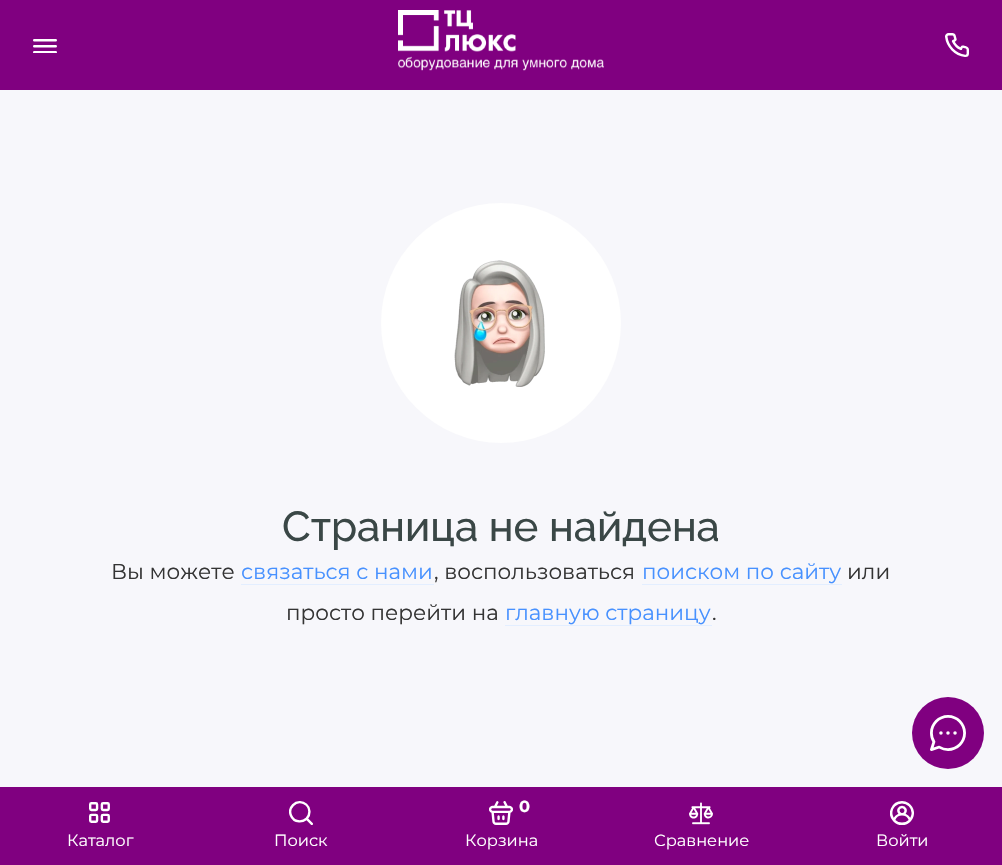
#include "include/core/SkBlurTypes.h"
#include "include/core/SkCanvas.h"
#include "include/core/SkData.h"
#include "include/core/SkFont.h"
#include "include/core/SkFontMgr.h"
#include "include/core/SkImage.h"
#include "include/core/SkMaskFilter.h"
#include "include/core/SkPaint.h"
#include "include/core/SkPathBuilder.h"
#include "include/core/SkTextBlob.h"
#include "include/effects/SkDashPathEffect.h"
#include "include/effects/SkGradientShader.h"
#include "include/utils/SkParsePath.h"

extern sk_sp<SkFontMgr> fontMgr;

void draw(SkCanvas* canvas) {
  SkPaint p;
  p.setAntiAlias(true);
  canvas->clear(SkColorSetRGB(247, 247, 251));
  p.setColor(SK_ColorWHITE);
  canvas->drawCircle(501, 323, 120, p);
  canvas->drawImageRect(SkImages::DeferredFromEncodedData(SkData::MakeFromFileName("images/1.png")), SkRect::MakeLTRB(454, 260, 545, 387), SkSamplingOptions());
  p.setColor(SkColorSetRGB(227, 238, 255));
  canvas->drawRect(SkRect::MakeLTRB(241, 584, 434, 585), p);
  canvas->drawRect(SkRect::MakeLTRB(642, 584, 842, 585), p);
  canvas->drawRect(SkRect::MakeLTRB(505, 625, 712, 626), p);
  p.setColor(SkColorSetRGB(128, 0, 128));
  canvas->drawRect(SkRect::MakeLTRB(0, 0, 1002, 90), p);
  canvas->drawCircle(948, 733, 36, p);
  canvas->drawImageRect(SkImages::DeferredFromEncodedData(SkData::MakeFromFileName("images/2.png")), SkRect::MakeLTRB(930, 715, 966, 751), SkSamplingOptions());
  canvas->drawImageRect(SkImages::DeferredFromEncodedData(SkData::MakeFromFileName("images/3.png")), SkRect::MakeLTRB(33, 39, 57, 53), SkSamplingOptions());
  canvas->drawImageRect(SkImages::DeferredFromEncodedData(SkData::MakeFromFileName("images/4.png")), SkRect::MakeLTRB(398, 10, 604, 71), SkSamplingOptions());
  canvas->drawImageRect(SkImages::DeferredFromEncodedData(SkData::MakeFromFileName("images/5.png")), SkRect::MakeLTRB(945, 33, 969, 57), SkSamplingOptions());
  canvas->drawRect(SkRect::MakeLTRB(0, 787, 1002, 865), p);
  canvas->drawImageRect(SkImages::DeferredFromEncodedData(SkData::MakeFromFileName("images/6.png")), SkRect::MakeLTRB(89, 802, 110, 823), SkSamplingOptions());
  canvas->drawImageRect(SkImages::DeferredFromEncodedData(SkData::MakeFromFileName("images/7.png")), SkRect::MakeLTRB(289, 801, 313, 825), SkSamplingOptions());
  canvas->drawImageRect(SkImages::DeferredFromEncodedData(SkData::MakeFromFileName("images/8.png")), SkRect::MakeLTRB(489, 801, 513, 825), SkSamplingOptions());
  canvas->drawImageRect(SkImages::DeferredFromEncodedData(SkData::MakeFromFileName("images/9.png")), SkRect::MakeLTRB(689, 802, 713, 825), SkSamplingOptions());
  canvas->drawImageRect(SkImages::DeferredFromEncodedData(SkData::MakeFromFileName("images/10.png")), SkRect::MakeLTRB(890, 801, 914, 825), SkSamplingOptions());
  SkFont font1(fontMgr->matchFamilyStyle("Raleway", SkFontStyle(500, SkFontStyle::kNormal_Width, SkFontStyle::kUpright_Slant)), 42);
  font1.setSubpixel(true);
  p.setColor(SkColorSetRGB(58, 71, 70));
  canvas->drawString("Страница не найдена", 282, 541, font1, p);
  SkFont font2(fontMgr->matchFamilyStyle("Montserrat", SkFontStyle::Normal()), 21.5f);
  font2.setSubpixel(true);
  p.setColor(SkColorSetRGB(52, 52, 52));
  canvas->drawString("Вы можете", 111, 579, font2, p);
  p.setColor(SkColorSetRGB(71, 145, 255));
  canvas->drawString("связаться с нами", 241, 579, font2, p);
  p.setColor(SkColorSetRGB(52, 52, 52));
  canvas->drawString(", воспользоваться", 434, 579, font2, p);
  p.setColor(SkColorSetRGB(71, 145, 255));
  canvas->drawString("поиском по сайту", 642, 579, font2, p);
  p.setColor(SkColorSetRGB(52, 52, 52));
  canvas->drawString("или", 847, 579, font2, p);
  canvas->drawString("просто перейти на", 286, 620, font2, p);
  p.setColor(SkColorSetRGB(71, 145, 255));
  canvas->drawString("главную страницу", 505, 620, font2, p);
  p.setColor(SkColorSetRGB(52, 52, 52));
  canvas->drawString(".", 712, 620, font2, p);
  SkFont font3(fontMgr->matchFamilyStyle("Montserrat", SkFontStyle::Normal()), 16.25f);
  font3.setSubpixel(true);
  p.setColor(SK_ColorWHITE);
  canvas->drawString("Каталог", 67, 846, font3, p);
  canvas->drawString("Поиск", 274, 846, font3, p);
  SkFont font4(fontMgr->matchFamilyStyle("Montserrat", SkFontStyle::Bold()), 16.25f);
  font4.setSubpixel(true);
  canvas->drawString("0", 519, 812, font4, p);
  canvas->drawString("Корзина", 465, 846, font3, p);
  canvas->drawString("Сравнение", 654, 846, font3, p);
  canvas->drawString("Войти", 876, 846, font3, p);
}
